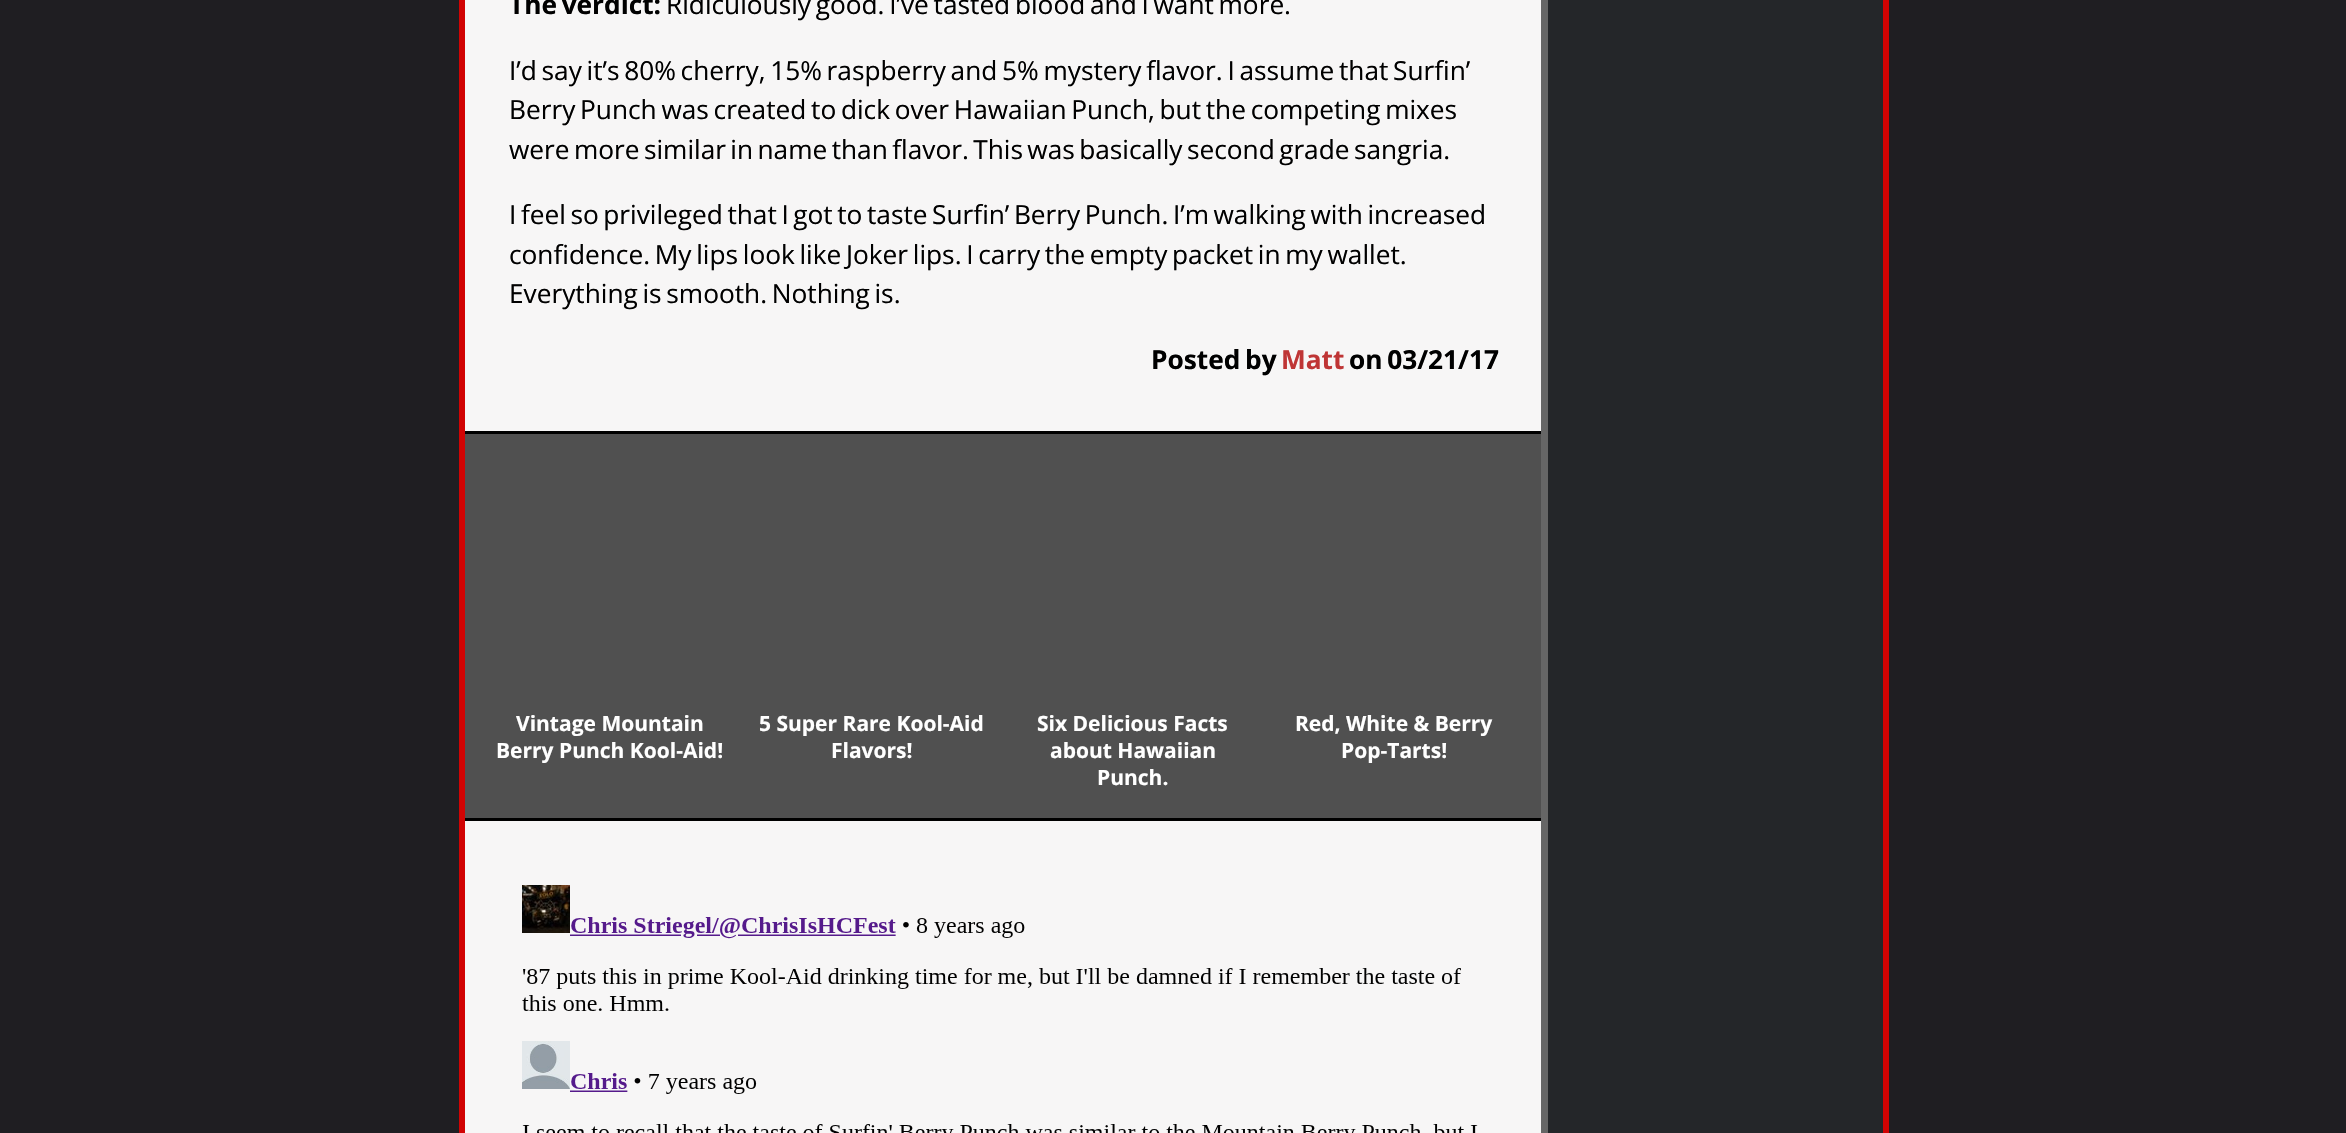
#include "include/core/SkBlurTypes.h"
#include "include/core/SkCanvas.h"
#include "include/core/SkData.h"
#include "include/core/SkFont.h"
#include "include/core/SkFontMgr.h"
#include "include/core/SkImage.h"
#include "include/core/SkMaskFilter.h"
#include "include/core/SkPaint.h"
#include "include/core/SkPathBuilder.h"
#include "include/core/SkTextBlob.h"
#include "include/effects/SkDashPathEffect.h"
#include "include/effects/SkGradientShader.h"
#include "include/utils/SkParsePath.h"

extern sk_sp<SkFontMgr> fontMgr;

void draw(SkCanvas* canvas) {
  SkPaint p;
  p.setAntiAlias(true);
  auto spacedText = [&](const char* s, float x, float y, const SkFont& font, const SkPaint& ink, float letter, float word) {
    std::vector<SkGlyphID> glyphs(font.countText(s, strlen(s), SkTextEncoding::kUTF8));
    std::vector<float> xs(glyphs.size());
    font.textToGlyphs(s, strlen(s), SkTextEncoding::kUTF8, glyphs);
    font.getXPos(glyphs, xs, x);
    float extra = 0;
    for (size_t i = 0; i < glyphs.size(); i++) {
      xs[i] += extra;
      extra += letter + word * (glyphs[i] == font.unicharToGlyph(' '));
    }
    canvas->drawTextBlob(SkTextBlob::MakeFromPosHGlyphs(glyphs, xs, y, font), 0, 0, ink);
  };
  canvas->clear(SkColorSetRGB(31, 30, 34));
  p.setColor(SkColorSetRGB(247, 246, 246));
  canvas->drawRect(SkRect::MakeLTRB(465, 0, 1541, 1133), p);
  p.setStyle(SkPaint::kStroke_Style);
  p.setStrokeWidth(6);
  p.setColor(SkColorSetRGB(209, 3, 3));
  canvas->drawRect(SkRect::MakeLTRB(462, -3, 1886, 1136), p);
  p.setStyle(SkPaint::kFill_Style);
  p.setColor(SkColorSetRGB(80, 80, 80));
  canvas->drawRect(SkRect::MakeLTRB(465, 434, 1541, 818), p);
  p.setColor(SK_ColorBLACK);
  canvas->drawRect(SkRect::MakeLTRB(465, 431, 1541, 434), p);
  canvas->drawRect(SkRect::MakeLTRB(465, 818, 1541, 821), p);
  canvas->drawImageRect(SkImages::DeferredFromEncodedData(SkData::MakeFromFileName("images/1.png")), SkRect::MakeLTRB(522, 885, 1478, 1133), SkSamplingOptions());
  p.setColor(SkColorSetRGB(36, 38, 41));
  canvas->drawRect(SkRect::MakeLTRB(1548, 0, 1883, 1133), p);
  p.setColor(SkColorSetRGB(102, 102, 102));
  canvas->drawRect(SkRect::MakeLTRB(1541, 0, 1548, 1133), p);
  SkFont font1(fontMgr->matchFamilyStyle("Open Sans", SkFontStyle::Bold()), 26.25f);
  font1.setSubpixel(true);
  p.setColor(SK_ColorBLACK);
  spacedText("The verdict:", 509, 14, font1, p, 0, -2.1f);
  SkFont font2(fontMgr->matchFamilyStyle("Open Sans", SkFontStyle::Normal()), 26.25f);
  font2.setSubpixel(true);
  spacedText("Ridiculously good. I’ve tasted blood and I want more.", 666, 14, font2, p, 0, -2.1f);
  spacedText("I’d say it’s 80% cherry, 15% raspberry and 5% mystery flavor. I assume that Surfin’", 509, 80, font2, p, 0, -2.1f);
  spacedText("Berry Punch was created to dick over Hawaiian Punch, but the competing mixes", 509, 119, font2, p, 0, -2.1f);
  spacedText("were more similar in name than flavor. This was basically second grade sangria.", 509, 159, font2, p, 0, -2.4f);
  spacedText("I feel so privileged that I got to taste Surfin’ Berry Punch. I’m walking with increased", 509, 224, font2, p, 0, -2.25f);
  spacedText("confidence. My lips look like Joker lips. I carry the empty packet in my wallet.", 509, 264, font2, p, 0, -2.1f);
  spacedText("Everything is smooth. Nothing is.", 509, 303, font2, p, 0, -2.1f);
  spacedText("Posted by", 1151, 369, font1, p, 0, -2.1f);
  p.setColor(SkColorSetRGB(191, 53, 53));
  canvas->drawString("Matt", 1281, 369, font1, p);
  p.setColor(SK_ColorBLACK);
  spacedText("on 03/21/17", 1349, 369, font1, p, 0, -2.1f);
  SkFont font3(fontMgr->matchFamilyStyle("Open Sans", SkFontStyle::Bold()), 21);
  font3.setSubpixel(true);
  p.setColor(SK_ColorWHITE);
  canvas->drawString("Vintage Mountain", 516, 731, font3, p);
  canvas->drawString("Berry Punch Kool-Aid!", 496, 758, font3, p);
  canvas->drawString("5 Super Rare Kool-Aid", 759, 731, font3, p);
  canvas->drawString("Flavors!", 831, 758, font3, p);
  canvas->drawString("Six Delicious Facts", 1037, 731, font3, p);
  canvas->drawString("about Hawaiian", 1050, 758, font3, p);
  canvas->drawString("Punch.", 1097, 785, font3, p);
  canvas->drawString("Red, White & Berry", 1295, 731, font3, p);
  canvas->drawString("Pop-Tarts!", 1341, 758, font3, p);
}
